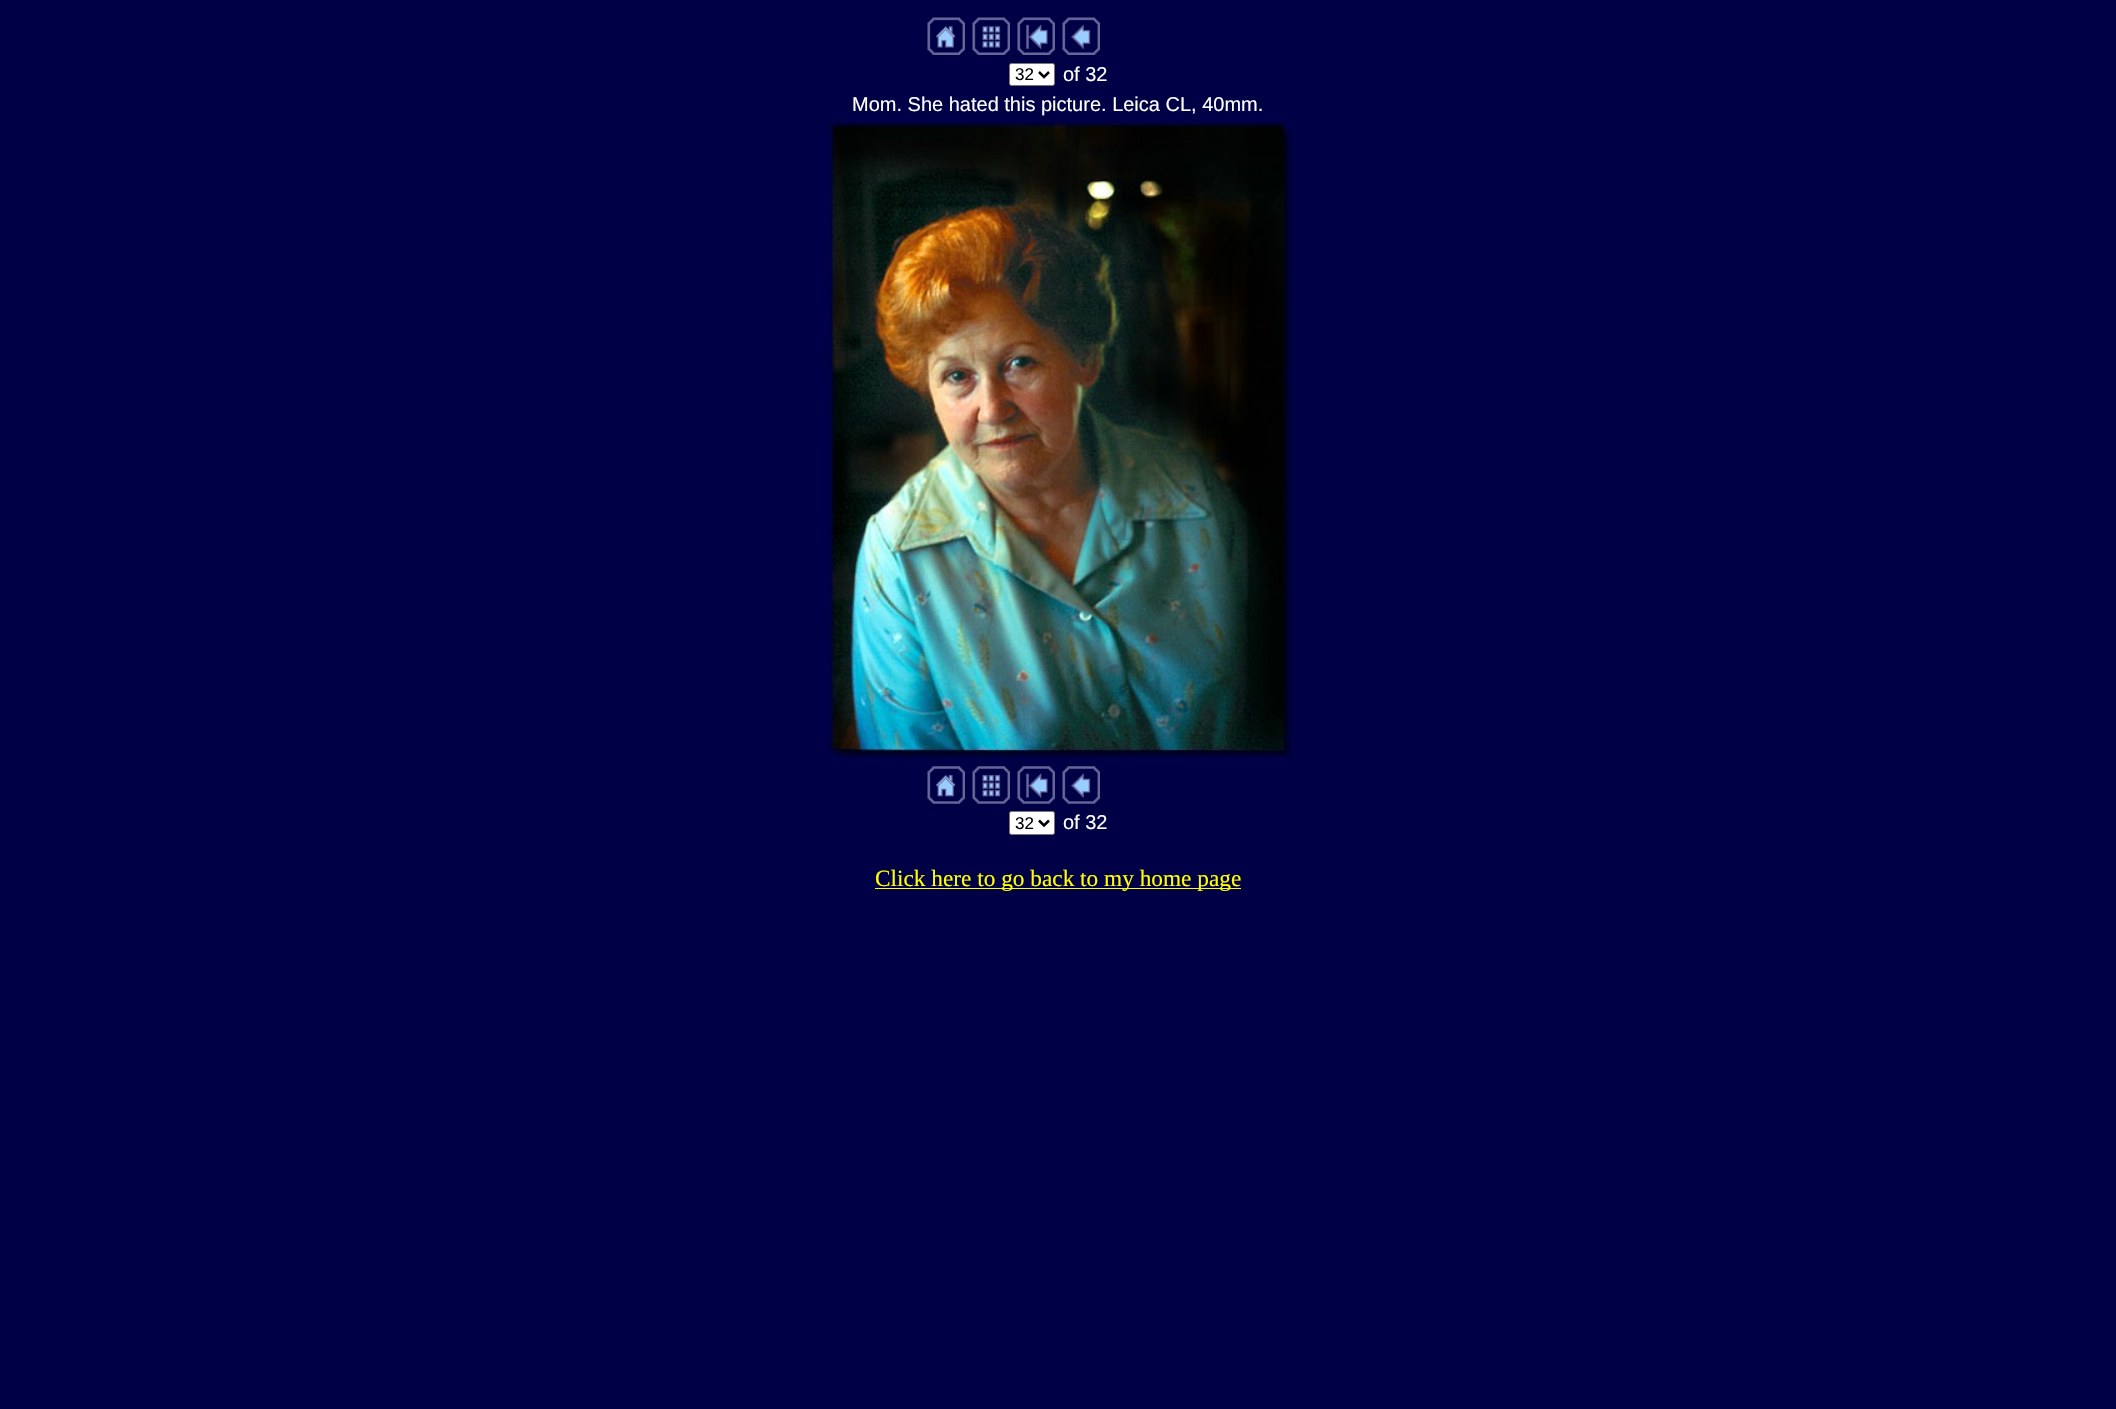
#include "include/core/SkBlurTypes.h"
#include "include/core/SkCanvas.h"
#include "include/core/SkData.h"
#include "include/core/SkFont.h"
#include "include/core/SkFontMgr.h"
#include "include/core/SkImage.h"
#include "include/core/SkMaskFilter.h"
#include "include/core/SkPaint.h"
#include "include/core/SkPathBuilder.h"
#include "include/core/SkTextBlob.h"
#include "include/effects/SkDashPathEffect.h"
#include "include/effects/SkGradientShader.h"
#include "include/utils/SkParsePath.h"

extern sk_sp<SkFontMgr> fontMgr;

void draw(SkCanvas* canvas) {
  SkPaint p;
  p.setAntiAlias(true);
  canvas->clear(SkColorSetRGB(0, 0, 70));
  canvas->drawImageRect(SkImages::DeferredFromEncodedData(SkData::MakeFromFileName("images/1.png")), SkRect::MakeLTRB(927, 17, 965, 55), SkSamplingOptions());
  canvas->drawImageRect(SkImages::DeferredFromEncodedData(SkData::MakeFromFileName("images/2.png")), SkRect::MakeLTRB(972, 17, 1010, 55), SkSamplingOptions());
  canvas->drawImageRect(SkImages::DeferredFromEncodedData(SkData::MakeFromFileName("images/3.png")), SkRect::MakeLTRB(1017, 17, 1055, 55), SkSamplingOptions());
  canvas->drawImageRect(SkImages::DeferredFromEncodedData(SkData::MakeFromFileName("images/4.png")), SkRect::MakeLTRB(1062, 17, 1100, 55), SkSamplingOptions());
  p.setColor(SK_ColorWHITE);
  canvas->drawRoundRect(SkRect::MakeLTRB(1009.5f, 63.5f, 1054.5f, 85.5f), 2, 2, p);
  p.setStyle(SkPaint::kStroke_Style);
  p.setStrokeWidth(1);
  p.setColor(SkColorSetRGB(118, 118, 118));
  canvas->drawRoundRect(SkRect::MakeLTRB(1009.5f, 63.5f, 1054.5f, 85.5f), 2, 2, p);
  p.setStrokeWidth(2.5f);
  p.setColor(SK_ColorBLACK);
  canvas->drawPath(SkPathBuilder().moveTo(1039, 72).lineTo(1044, 77).lineTo(1049, 72).detach(), p);
  canvas->drawImageRect(SkImages::DeferredFromEncodedData(SkData::MakeFromFileName("images/5.png")), SkRect::MakeLTRB(824, 117, 1293, 758), SkSamplingOptions());
  canvas->drawImageRect(SkImages::DeferredFromEncodedData(SkData::MakeFromFileName("images/6.png")), SkRect::MakeLTRB(927, 766, 965, 804), SkSamplingOptions());
  canvas->drawImageRect(SkImages::DeferredFromEncodedData(SkData::MakeFromFileName("images/7.png")), SkRect::MakeLTRB(972, 766, 1010, 804), SkSamplingOptions());
  canvas->drawImageRect(SkImages::DeferredFromEncodedData(SkData::MakeFromFileName("images/8.png")), SkRect::MakeLTRB(1017, 766, 1055, 804), SkSamplingOptions());
  canvas->drawImageRect(SkImages::DeferredFromEncodedData(SkData::MakeFromFileName("images/9.png")), SkRect::MakeLTRB(1062, 766, 1100, 804), SkSamplingOptions());
  p.setStyle(SkPaint::kFill_Style);
  p.setColor(SK_ColorWHITE);
  canvas->drawRoundRect(SkRect::MakeLTRB(1009.5f, 811.5f, 1054.5f, 834.5f), 2, 2, p);
  p.setStyle(SkPaint::kStroke_Style);
  p.setStrokeWidth(1);
  p.setColor(SkColorSetRGB(118, 118, 118));
  canvas->drawRoundRect(SkRect::MakeLTRB(1009.5f, 811.5f, 1054.5f, 834.5f), 2, 2, p);
  p.setStrokeWidth(2.5f);
  p.setColor(SK_ColorBLACK);
  canvas->drawPath(SkPathBuilder().moveTo(1039, 820.5f).lineTo(1044, 825.5f).lineTo(1049, 820.5f).detach(), p);
  p.setStyle(SkPaint::kFill_Style);
  p.setColor(SkColorSetRGB(255, 255, 0));
  canvas->drawRect(SkRect::MakeLTRB(875, 888, 1241, 889), p);
  SkFont font1(fontMgr->matchFamilyStyle("Liberation Sans", SkFontStyle::Normal()), 17);
  font1.setSubpixel(true);
  p.setColor(SK_ColorBLACK);
  canvas->drawString("32", 1015, 80, font1, p);
  SkFont font2(fontMgr->matchFamilyStyle("Liberation Sans", SkFontStyle::Normal()), 20);
  font2.setSubpixel(true);
  p.setColor(SK_ColorWHITE);
  canvas->drawString("of 32", 1063, 81, font2, p);
  canvas->drawString("Mom. She hated this picture. Leica CL, 40mm.", 852, 111, font2, p);
  p.setColor(SK_ColorBLACK);
  canvas->drawString("32", 1015, 829, font1, p);
  p.setColor(SK_ColorWHITE);
  canvas->drawString("of 32", 1063, 829, font2, p);
  SkFont font3(fontMgr->matchFamilyStyle("Liberation Serif", SkFontStyle::Normal()), 23.3f);
  font3.setSubpixel(true);
  p.setColor(SkColorSetRGB(255, 255, 0));
  canvas->drawString("Click here to go back to my home page", 875, 886, font3, p);
}
